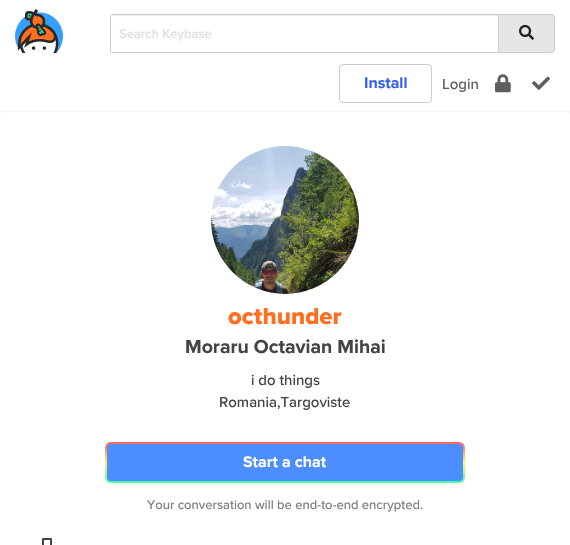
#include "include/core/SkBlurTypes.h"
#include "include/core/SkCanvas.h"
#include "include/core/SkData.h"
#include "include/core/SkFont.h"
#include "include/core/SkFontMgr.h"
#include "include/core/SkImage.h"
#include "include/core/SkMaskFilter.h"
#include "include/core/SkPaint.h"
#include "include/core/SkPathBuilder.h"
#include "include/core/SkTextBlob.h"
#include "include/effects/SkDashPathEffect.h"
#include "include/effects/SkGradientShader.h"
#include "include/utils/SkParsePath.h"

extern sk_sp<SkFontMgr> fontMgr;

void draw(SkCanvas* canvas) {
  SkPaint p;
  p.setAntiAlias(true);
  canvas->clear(SkColorSetRGB(246, 246, 246));
  p.setColor(SK_ColorWHITE);
  canvas->drawRect(SkRect::MakeLTRB(0, 0, 570, 111), p);
  canvas->drawImageRect(SkImages::DeferredFromEncodedData(SkData::MakeFromFileName("images/1.png")), SkRect::MakeLTRB(15, 9, 63, 53), SkSamplingOptions());
  p.setColor(SkColorSetRGB(236, 236, 236));
  canvas->drawPath(SkPathBuilder().moveTo(112, 16).lineTo(498, 16).lineTo(498, 15).lineTo(112, 15).cubicTo(111, 15, 111, 16, 111, 17).close().detach(), p);
  p.setStyle(SkPaint::kStroke_Style);
  p.setStrokeWidth(1);
  p.setColor(SkColorSetRGB(204, 204, 204));
  canvas->drawPath(SkPathBuilder().moveTo(112, 14.5f).lineTo(498.5f, 14.5f).lineTo(498.5f, 52.5f).lineTo(112, 52.5f).cubicTo(111, 52.5f, 110.5f, 52, 110.5f, 51).lineTo(110.5f, 16).cubicTo(110.5f, 15, 111, 14.5f, 112, 14.5f).close().detach(), p);
  p.setStyle(SkPaint::kFill_Style);
  p.setColor(SkColorSetRGB(230, 230, 230));
  canvas->drawPath(SkPathBuilder().moveTo(499, 14).lineTo(551, 14).cubicTo(553, 14, 555, 16, 555, 18).lineTo(555, 49).cubicTo(555, 51, 553, 53, 551, 53).lineTo(499, 53).close().detach(), p);
  p.setColor(SkColorSetRGB(204, 204, 204));
  canvas->drawPath(SkPathBuilder(SkPathFillType::kEvenOdd).moveTo(499, 14).lineTo(551, 14).cubicTo(553, 14, 555, 16, 555, 18).lineTo(555, 49).cubicTo(555, 51, 553, 53, 551, 53).lineTo(499, 53).close().moveTo(499, 15).lineTo(551, 15).cubicTo(553, 15, 554, 16, 554, 18).lineTo(554, 49).cubicTo(554, 51, 553, 52, 551, 52).lineTo(499, 52).close().detach(), p);
  canvas->drawImageRect(SkImages::DeferredFromEncodedData(SkData::MakeFromFileName("images/2.png")), SkRect::MakeLTRB(519, 24, 534, 40), SkSamplingOptions());
  p.setStyle(SkPaint::kStroke_Style);
  canvas->drawRoundRect(SkRect::MakeLTRB(339.5f, 64.5f, 431.5f, 102.5f), 3.5f, 3.5f, p);
  canvas->drawImageRect(SkImages::DeferredFromEncodedData(SkData::MakeFromFileName("images/3.png")), SkRect::MakeLTRB(495, 74, 511, 93), SkSamplingOptions());
  canvas->drawImageRect(SkImages::DeferredFromEncodedData(SkData::MakeFromFileName("images/4.png")), SkRect::MakeLTRB(532, 76, 550, 90), SkSamplingOptions());
  p.setStyle(SkPaint::kFill_Style);
  p.setColor(SK_ColorWHITE);
  canvas->drawRoundRect(SkRect::MakeLTRB(0, 112, 570, 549), 4, 4, p);
  canvas->drawImageRect(SkImages::DeferredFromEncodedData(SkData::MakeFromFileName("images/5.png")), SkRect::MakeLTRB(211, 146, 359, 294), SkSamplingOptions());
  {
    const SkColor colors[] = {SkColorSetRGB(255, 93, 93), SkColorSetRGB(255, 247, 90), SkColorSetRGB(58, 255, 172)};
    const float stops[] = {0, 0.5f, 1};
    const SkPoint ends[] = {{285, 442}, {285, 483}};
    p.setShader(SkGradientShader::MakeLinear(ends, colors, stops, 3, SkTileMode::kClamp));
    p.setAlpha(255);
  }
  canvas->drawRoundRect(SkRect::MakeLTRB(105, 442, 465, 483), 6, 6, p);
  p.setShader(nullptr);
  p.setColor(SkColorSetRGB(76, 142, 255));
  canvas->drawRoundRect(SkRect::MakeLTRB(107, 444, 463, 481), 4, 4, p);
  canvas->drawImageRect(SkImages::DeferredFromEncodedData(SkData::MakeFromFileName("images/6.png")), SkRect::MakeLTRB(42, 538, 52, 545), SkSamplingOptions());
  SkFont font1(fontMgr->matchFamilyStyle("Proxima Nova", SkFontStyle(500, SkFontStyle::kNormal_Width, SkFontStyle::kUpright_Slant)), 13);
  font1.setSubpixel(true);
  p.setColor(SkColorSetRGB(221, 221, 221));
  canvas->drawString("Search Keybase", 119, 38, font1, p);
  SkFont font2(fontMgr->matchFamilyStyle("Proxima Nova", SkFontStyle::Bold()), 16);
  font2.setSubpixel(true);
  p.setColor(SkColorSetRGB(54, 99, 234));
  canvas->drawString("Install", 364, 88, font2, p);
  SkFont font3(fontMgr->matchFamilyStyle("Proxima Nova", SkFontStyle(500, SkFontStyle::kNormal_Width, SkFontStyle::kUpright_Slant)), 15);
  font3.setSubpixel(true);
  p.setColor(SkColorSetRGB(94, 94, 94));
  canvas->drawString("Login", 442, 89, font3, p);
  SkFont font4(fontMgr->matchFamilyStyle("Proxima Nova", SkFontStyle(800, SkFontStyle::kNormal_Width, SkFontStyle::kUpright_Slant)), 24);
  font4.setSubpixel(true);
  p.setColor(SkColorSetRGB(255, 111, 33));
  canvas->drawString("octhunder", 228, 324, font4, p);
  SkFont font5(fontMgr->matchFamilyStyle("Proxima Nova", SkFontStyle::Bold()), 19.5f);
  font5.setSubpixel(true);
  p.setColor(SkColorSetRGB(68, 68, 68));
  canvas->drawString("Moraru Octavian Mihai", 185, 353, font5, p);
  canvas->drawString("i do things", 251, 385, font3, p);
  canvas->drawString("Romania,Targoviste", 219, 407, font3, p);
  p.setColor(SK_ColorWHITE);
  canvas->drawString("Start a chat", 243, 467, font2, p);
  p.setColor(SkColorSetRGB(128, 128, 128));
  canvas->drawString("Your conversation will be end-to-end encrypted.", 147, 509, font1, p);
}
